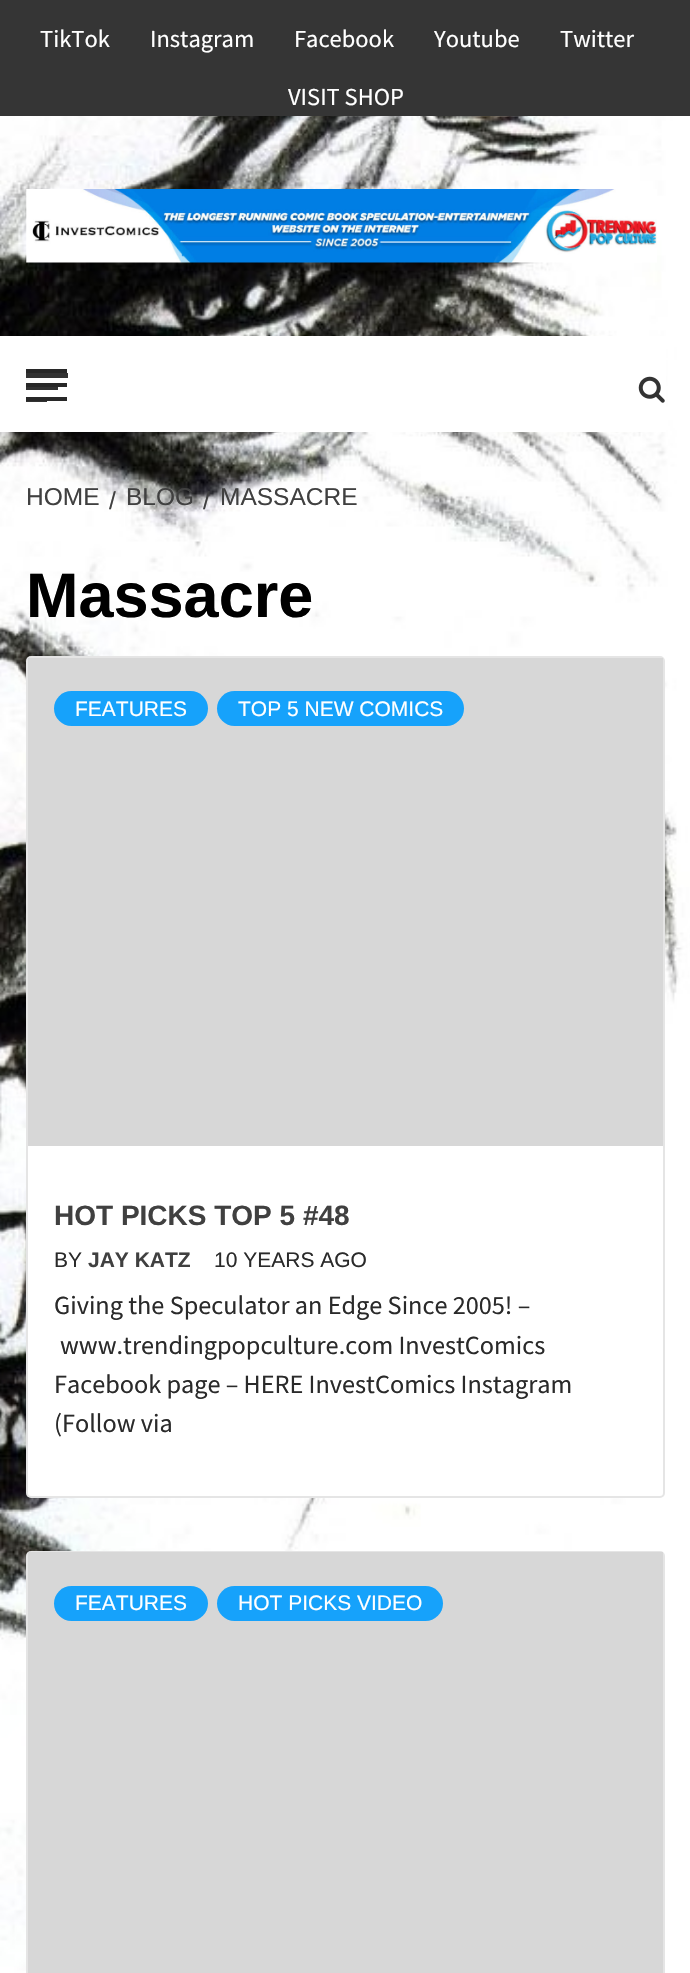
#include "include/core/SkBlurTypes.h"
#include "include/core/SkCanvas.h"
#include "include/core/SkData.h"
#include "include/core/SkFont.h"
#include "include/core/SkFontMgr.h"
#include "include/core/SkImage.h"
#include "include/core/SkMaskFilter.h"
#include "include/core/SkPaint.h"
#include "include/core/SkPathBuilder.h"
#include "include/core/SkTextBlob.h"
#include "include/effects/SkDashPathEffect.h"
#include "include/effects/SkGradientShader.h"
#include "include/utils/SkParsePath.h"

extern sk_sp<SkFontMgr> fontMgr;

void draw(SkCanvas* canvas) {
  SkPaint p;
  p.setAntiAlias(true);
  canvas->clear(SK_ColorWHITE);
  canvas->drawImageRect(SkImages::DeferredFromEncodedData(SkData::MakeFromFileName("images/1.png")), SkRect::MakeLTRB(0, 116, 690, 1973), SkSamplingOptions());
  p.setColor(SkColorSetRGB(53, 53, 53));
  canvas->drawRect(SkRect::MakeLTRB(0, 0, 690, 116), p);
  canvas->drawImageRect(SkImages::DeferredFromEncodedData(SkData::MakeFromFileName("images/2.png")), SkRect::MakeLTRB(26, 189, 657, 263), SkSamplingOptions());
  p.setColor(SK_ColorWHITE);
  canvas->drawRect(SkRect::MakeLTRB(0, 336, 666, 432), p);
  p.setColor(SkColorSetRGB(40, 40, 40));
  canvas->drawRect(SkRect::MakeLTRB(26, 383, 67, 387), p);
  canvas->drawRect(SkRect::MakeLTRB(26, 369, 67, 373), p);
  canvas->drawRect(SkRect::MakeLTRB(26, 397, 67, 401), p);
  p.setColor(SkColorSetRGB(51, 51, 51));
  canvas->drawRect(SkRect::MakeLTRB(26, 373, 68, 378), p);
  canvas->drawRect(SkRect::MakeLTRB(26, 387, 58, 390), p);
  canvas->drawRect(SkRect::MakeLTRB(26, 401, 47, 402), p);
  canvas->drawImageRect(SkImages::DeferredFromEncodedData(SkData::MakeFromFileName("images/3.png")), SkRect::MakeLTRB(638, 376, 665, 403), SkSamplingOptions());
  p.setColor(SK_ColorWHITE);
  canvas->drawRoundRect(SkRect::MakeLTRB(26, 656, 665, 1498), 5, 5, p);
  p.setStyle(SkPaint::kStroke_Style);
  p.setStrokeWidth(2);
  p.setColor(SkColorSetARGB(26, 0, 1, 1));
  canvas->drawRoundRect(SkRect::MakeLTRB(27, 657, 664, 1497), 4, 4, p);
  p.setStyle(SkPaint::kFill_Style);
  p.setColor(SkColorSetRGB(215, 215, 215));
  canvas->drawRect(SkRect::MakeLTRB(28, 658, 663, 1146), p);
  p.setColor(SkColorSetRGB(22, 162, 251));
  canvas->drawRoundRect(SkRect::MakeLTRB(54, 691, 208, 726), 17.5f, 17.5f, p);
  canvas->drawRoundRect(SkRect::MakeLTRB(217, 691, 464, 726), 17.5f, 17.5f, p);
  p.setColor(SK_ColorWHITE);
  canvas->drawRoundRect(SkRect::MakeLTRB(26, 1551, 665, 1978), 5, 5, p);
  p.setStyle(SkPaint::kStroke_Style);
  p.setColor(SkColorSetARGB(26, 0, 1, 1));
  canvas->drawRoundRect(SkRect::MakeLTRB(27, 1552, 664, 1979), 4, 4, p);
  p.setStyle(SkPaint::kFill_Style);
  p.setColor(SkColorSetRGB(215, 215, 215));
  canvas->drawRect(SkRect::MakeLTRB(28, 1552, 663, 1973), p);
  p.setColor(SkColorSetRGB(22, 162, 251));
  canvas->drawRoundRect(SkRect::MakeLTRB(54, 1586, 208, 1621), 17.5f, 17.5f, p);
  canvas->drawRoundRect(SkRect::MakeLTRB(217, 1586, 443, 1621), 17.5f, 17.5f, p);
  SkFont font1(fontMgr->matchFamilyStyle("Source Sans Pro", SkFontStyle::Normal()), 24.5f);
  font1.setSubpixel(true);
  p.setColor(SK_ColorWHITE);
  canvas->drawString("TikTok", 40, 47, font1, p);
  canvas->drawString("Instagram", 150, 47, font1, p);
  canvas->drawString("Facebook", 294, 47, font1, p);
  canvas->drawString("Youtube", 434, 47, font1, p);
  canvas->drawString("Twitter", 560, 47, font1, p);
  canvas->drawString("VISIT SHOP", 288, 105, font1, p);
  SkFont font2(fontMgr->matchFamilyStyle("Liberation Sans", SkFontStyle::Normal()), 24.5f);
  font2.setSubpixel(true);
  p.setColor(SkColorSetRGB(64, 64, 64));
  canvas->drawString("HOME", 26, 505, font2, p);
  canvas->drawString("/", 109, 509, font2, p);
  canvas->drawString("BLOG", 126, 505, font2, p);
  canvas->drawString("/", 203, 509, font2, p);
  canvas->drawString("MASSACRE", 220, 505, font2, p);
  SkFont font3(fontMgr->matchFamilyStyle("Liberation Sans", SkFontStyle::Bold()), 63);
  font3.setSubpixel(true);
  p.setColor(SK_ColorBLACK);
  canvas->drawString("Massacre", 26, 617, font3, p);
  SkFont font4(fontMgr->matchFamilyStyle("Liberation Sans", SkFontStyle::Normal()), 21);
  font4.setSubpixel(true);
  p.setColor(SK_ColorWHITE);
  canvas->drawString("FEATURES", 75, 716, font4, p);
  canvas->drawString("TOP 5 NEW COMICS", 238, 716, font4, p);
  SkFont font5(fontMgr->matchFamilyStyle("Liberation Sans", SkFontStyle::Bold()), 28);
  font5.setSubpixel(true);
  p.setColor(SkColorSetRGB(64, 64, 64));
  canvas->drawString("HOT PICKS TOP 5 #48", 54, 1225, font5, p);
  p.setColor(SkColorSetRGB(42, 42, 42));
  canvas->drawString("BY", 54, 1267, font4, p);
  SkFont font6(fontMgr->matchFamilyStyle("Liberation Sans", SkFontStyle::Bold()), 21);
  font6.setSubpixel(true);
  p.setColor(SkColorSetRGB(64, 64, 64));
  canvas->drawString("JAY KATZ", 88, 1267, font6, p);
  p.setColor(SkColorSetRGB(42, 42, 42));
  canvas->drawString("10 YEARS AGO", 214, 1267, font4, p);
  SkFont font7(fontMgr->matchFamilyStyle("Source Sans Pro", SkFontStyle::Normal()), 26.25f);
  font7.setSubpixel(true);
  canvas->drawString("Giving the Speculator an Edge Since 2005! –", 54, 1314, font7, p);
  canvas->drawString("www.trendingpopculture.com InvestComics", 60, 1354, font7, p);
  canvas->drawString("Facebook page – HERE InvestComics Instagram", 54, 1393, font7, p);
  canvas->drawString("(Follow via", 54, 1432, font7, p);
  p.setColor(SK_ColorWHITE);
  canvas->drawString("FEATURES", 75, 1610, font4, p);
  canvas->drawString("HOT PICKS VIDEO", 238, 1610, font4, p);
}
